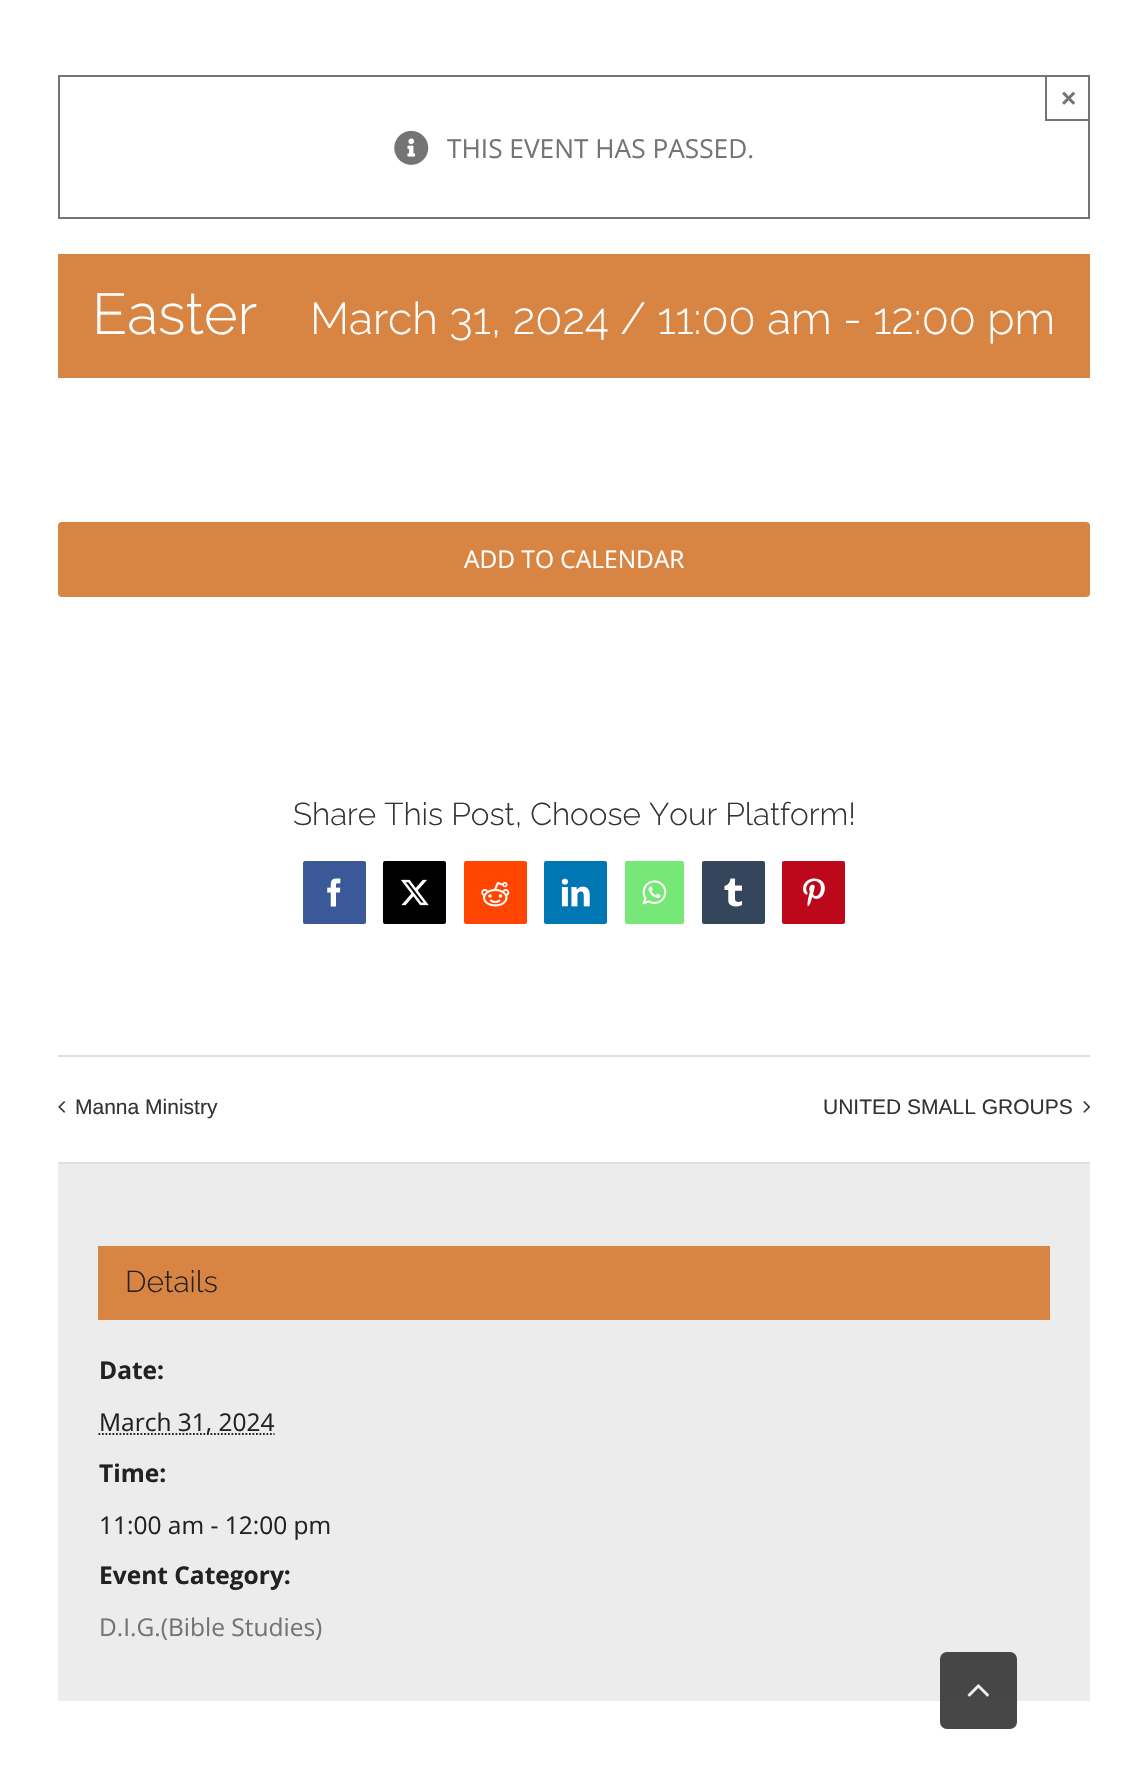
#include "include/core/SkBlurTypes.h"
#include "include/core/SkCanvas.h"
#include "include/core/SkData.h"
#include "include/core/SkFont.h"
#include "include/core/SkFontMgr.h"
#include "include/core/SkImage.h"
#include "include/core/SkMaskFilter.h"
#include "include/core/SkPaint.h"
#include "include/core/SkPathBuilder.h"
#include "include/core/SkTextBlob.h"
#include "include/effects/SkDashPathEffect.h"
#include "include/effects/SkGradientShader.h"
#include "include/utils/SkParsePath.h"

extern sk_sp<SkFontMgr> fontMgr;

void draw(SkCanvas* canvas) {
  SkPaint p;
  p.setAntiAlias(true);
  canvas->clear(SK_ColorWHITE);
  p.setStyle(SkPaint::kStroke_Style);
  p.setStrokeWidth(2);
  p.setColor(SkColorSetRGB(116, 116, 116));
  canvas->drawRect(SkRect::MakeLTRB(59, 76, 1089, 218), p);
  p.setStyle(SkPaint::kFill_Style);
  canvas->drawRect(SkRect::MakeLTRB(1045, 119, 1090, 121), p);
  canvas->drawRect(SkRect::MakeLTRB(1045, 75, 1047, 121), p);
  canvas->drawImageRect(SkImages::DeferredFromEncodedData(SkData::MakeFromFileName("images/1.png")), SkRect::MakeLTRB(394, 130, 429, 165), SkSamplingOptions());
  p.setColor(SkColorSetRGB(216, 132, 67));
  canvas->drawRect(SkRect::MakeLTRB(58, 254, 1090, 378), p);
  canvas->drawRoundRect(SkRect::MakeLTRB(58, 522, 1090, 597), 4, 4, p);
  p.setColor(SkColorSetRGB(59, 89, 152));
  canvas->drawRoundRect(SkRect::MakeLTRB(304, 862, 365, 923), 1, 1, p);
  p.setStyle(SkPaint::kStroke_Style);
  canvas->drawRoundRect(SkRect::MakeLTRB(304, 862, 365, 923), 1, 1, p);
  canvas->drawImageRect(SkImages::DeferredFromEncodedData(SkData::MakeFromFileName("images/2.png")), SkRect::MakeLTRB(327, 878, 341, 907), SkSamplingOptions());
  p.setStyle(SkPaint::kFill_Style);
  p.setColor(SK_ColorBLACK);
  canvas->drawRoundRect(SkRect::MakeLTRB(384, 862, 445, 923), 1, 1, p);
  p.setStyle(SkPaint::kStroke_Style);
  canvas->drawRoundRect(SkRect::MakeLTRB(384, 862, 445, 923), 1, 1, p);
  canvas->drawImageRect(SkImages::DeferredFromEncodedData(SkData::MakeFromFileName("images/3.png")), SkRect::MakeLTRB(400, 879, 429, 906), SkSamplingOptions());
  p.setStyle(SkPaint::kFill_Style);
  p.setColor(SkColorSetRGB(255, 69, 0));
  canvas->drawRoundRect(SkRect::MakeLTRB(465, 862, 526, 923), 1, 1, p);
  p.setStyle(SkPaint::kStroke_Style);
  canvas->drawRoundRect(SkRect::MakeLTRB(465, 862, 526, 923), 1, 1, p);
  canvas->drawImageRect(SkImages::DeferredFromEncodedData(SkData::MakeFromFileName("images/4.png")), SkRect::MakeLTRB(481, 882, 510, 907), SkSamplingOptions());
  p.setStyle(SkPaint::kFill_Style);
  p.setColor(SkColorSetRGB(0, 119, 181));
  canvas->drawRoundRect(SkRect::MakeLTRB(545, 862, 606, 923), 1, 1, p);
  p.setStyle(SkPaint::kStroke_Style);
  canvas->drawRoundRect(SkRect::MakeLTRB(545, 862, 606, 923), 1, 1, p);
  canvas->drawImageRect(SkImages::DeferredFromEncodedData(SkData::MakeFromFileName("images/5.png")), SkRect::MakeLTRB(561, 878, 590, 907), SkSamplingOptions());
  p.setStyle(SkPaint::kFill_Style);
  p.setColor(SkColorSetRGB(119, 232, 120));
  canvas->drawRoundRect(SkRect::MakeLTRB(626, 862, 683, 923), 1, 1, p);
  p.setStyle(SkPaint::kStroke_Style);
  canvas->drawRoundRect(SkRect::MakeLTRB(626, 862, 683, 923), 1, 1, p);
  canvas->drawImageRect(SkImages::DeferredFromEncodedData(SkData::MakeFromFileName("images/6.png")), SkRect::MakeLTRB(642, 880, 667, 905), SkSamplingOptions());
  p.setStyle(SkPaint::kFill_Style);
  p.setColor(SkColorSetRGB(53, 70, 92));
  canvas->drawRoundRect(SkRect::MakeLTRB(703, 862, 764, 923), 1, 1, p);
  p.setStyle(SkPaint::kStroke_Style);
  canvas->drawRoundRect(SkRect::MakeLTRB(703, 862, 764, 923), 1, 1, p);
  canvas->drawImageRect(SkImages::DeferredFromEncodedData(SkData::MakeFromFileName("images/7.png")), SkRect::MakeLTRB(724, 878, 742, 907), SkSamplingOptions());
  p.setStyle(SkPaint::kFill_Style);
  p.setColor(SkColorSetRGB(189, 8, 28));
  canvas->drawRoundRect(SkRect::MakeLTRB(783, 862, 844, 923), 1, 1, p);
  p.setStyle(SkPaint::kStroke_Style);
  canvas->drawRoundRect(SkRect::MakeLTRB(783, 862, 844, 923), 1, 1, p);
  canvas->drawImageRect(SkImages::DeferredFromEncodedData(SkData::MakeFromFileName("images/8.png")), SkRect::MakeLTRB(803, 878, 825, 907), SkSamplingOptions());
  p.setStyle(SkPaint::kFill_Style);
  p.setColor(SkColorSetRGB(224, 222, 222));
  canvas->drawRect(SkRect::MakeLTRB(58, 1055, 1090, 1057), p);
  canvas->drawRect(SkRect::MakeLTRB(58, 1162, 1090, 1164), p);
  canvas->drawImageRect(SkImages::DeferredFromEncodedData(SkData::MakeFromFileName("images/9.png")), SkRect::MakeLTRB(58, 1101, 66, 1113), SkSamplingOptions());
  canvas->drawImageRect(SkImages::DeferredFromEncodedData(SkData::MakeFromFileName("images/10.png")), SkRect::MakeLTRB(1083, 1101, 1090, 1113), SkSamplingOptions());
  p.setColor(SkColorSetRGB(236, 236, 236));
  canvas->drawRect(SkRect::MakeLTRB(58, 1164, 1090, 1701), p);
  p.setColor(SkColorSetRGB(216, 132, 67));
  canvas->drawRect(SkRect::MakeLTRB(98, 1246, 1050, 1320), p);
  p.setStyle(SkPaint::kStroke_Style);
  p.setStrokeWidth(1.8f);
  p.setColor(SkColorSetRGB(34, 34, 34));
  p.setPathEffect(SkDashPathEffect::Make({{1.75f, 1.75f}}, 0));
  canvas->drawPath(SkPathBuilder().moveTo(98.5f, 1434).lineTo(274.5f, 1434).detach(), p);
  p.setPathEffect(nullptr);
  p.setStyle(SkPaint::kFill_Style);
  p.setColor(SkColorSetARGB(230, 51, 51, 51));
  canvas->drawRoundRect(SkRect::MakeLTRB(940, 1652, 1017, 1729), 7, 7, p);
  canvas->drawImageRect(SkImages::DeferredFromEncodedData(SkData::MakeFromFileName("images/11.png")), SkRect::MakeLTRB(967, 1684, 989, 1697), SkSamplingOptions());
  SkFont font1(fontMgr->matchFamilyStyle("Liberation Sans", SkFontStyle::Bold()), 26.25f);
  font1.setSubpixel(true);
  p.setColor(SkColorSetRGB(116, 116, 116));
  canvas->drawString("×", 1061, 107, font1, p);
  SkFont font2(fontMgr->matchFamilyStyle("Open Sans", SkFontStyle::Normal()), 26.25f);
  font2.setSubpixel(true);
  canvas->drawString("THIS EVENT HAS PASSED.", 447, 158, font2, p);
  SkFont font3(fontMgr->matchFamilyStyle("Raleway", SkFontStyle(100, SkFontStyle::kNormal_Width, SkFontStyle::kUpright_Slant)), 57.5f);
  font3.setSubpixel(true);
  p.setColor(SK_ColorWHITE);
  canvas->drawString("Easter", 92, 334, font3, p);
  SkFont font4(fontMgr->matchFamilyStyle("Raleway", SkFontStyle(100, SkFontStyle::kNormal_Width, SkFontStyle::kUpright_Slant)), 44.4f);
  font4.setSubpixel(true);
  canvas->drawString("March 31, 2024 / 11:00 am - 12:00 pm", 310, 334, font4, p);
  SkFont font5(fontMgr->matchFamilyStyle("Open Sans", SkFontStyle::Normal()), 24.5f);
  font5.setSubpixel(true);
  canvas->drawString("ADD TO CALENDAR", 464, 568, font5, p);
  SkFont font6(fontMgr->matchFamilyStyle("Raleway", SkFontStyle(100, SkFontStyle::kNormal_Width, SkFontStyle::kUpright_Slant)), 31.5f);
  font6.setSubpixel(true);
  p.setColor(SkColorSetRGB(51, 51, 51));
  canvas->drawString("Share This Post, Choose Your Platform!", 293, 825, font6, p);
  SkFont font7(fontMgr->matchFamilyStyle("Liberation Sans", SkFontStyle::Normal()), 21);
  font7.setSubpixel(true);
  canvas->drawString("Manna Ministry", 75, 1114, font7, p);
  canvas->drawString("UNITED SMALL GROUPS", 823, 1114, font7, p);
  SkFont font8(fontMgr->matchFamilyStyle("Raleway", SkFontStyle(100, SkFontStyle::kNormal_Width, SkFontStyle::kUpright_Slant)), 30);
  font8.setSubpixel(true);
  p.setColor(SkColorSetRGB(34, 34, 34));
  canvas->drawString("Details", 125, 1292, font8, p);
  SkFont font9(fontMgr->matchFamilyStyle("Open Sans", SkFontStyle::Bold()), 24.5f);
  font9.setSubpixel(true);
  canvas->drawString("Date:", 99, 1379, font9, p);
  canvas->drawString("March 31, 2024", 99, 1431, font5, p);
  canvas->drawString("Time:", 99, 1482, font9, p);
  canvas->drawString("11:00 am - 12:00 pm", 99, 1534, font5, p);
  canvas->drawString("Event Category:", 99, 1584, font9, p);
  p.setColor(SkColorSetRGB(116, 116, 116));
  canvas->drawString("D.I.G.(Bible Studies)", 99, 1636, font5, p);
}
